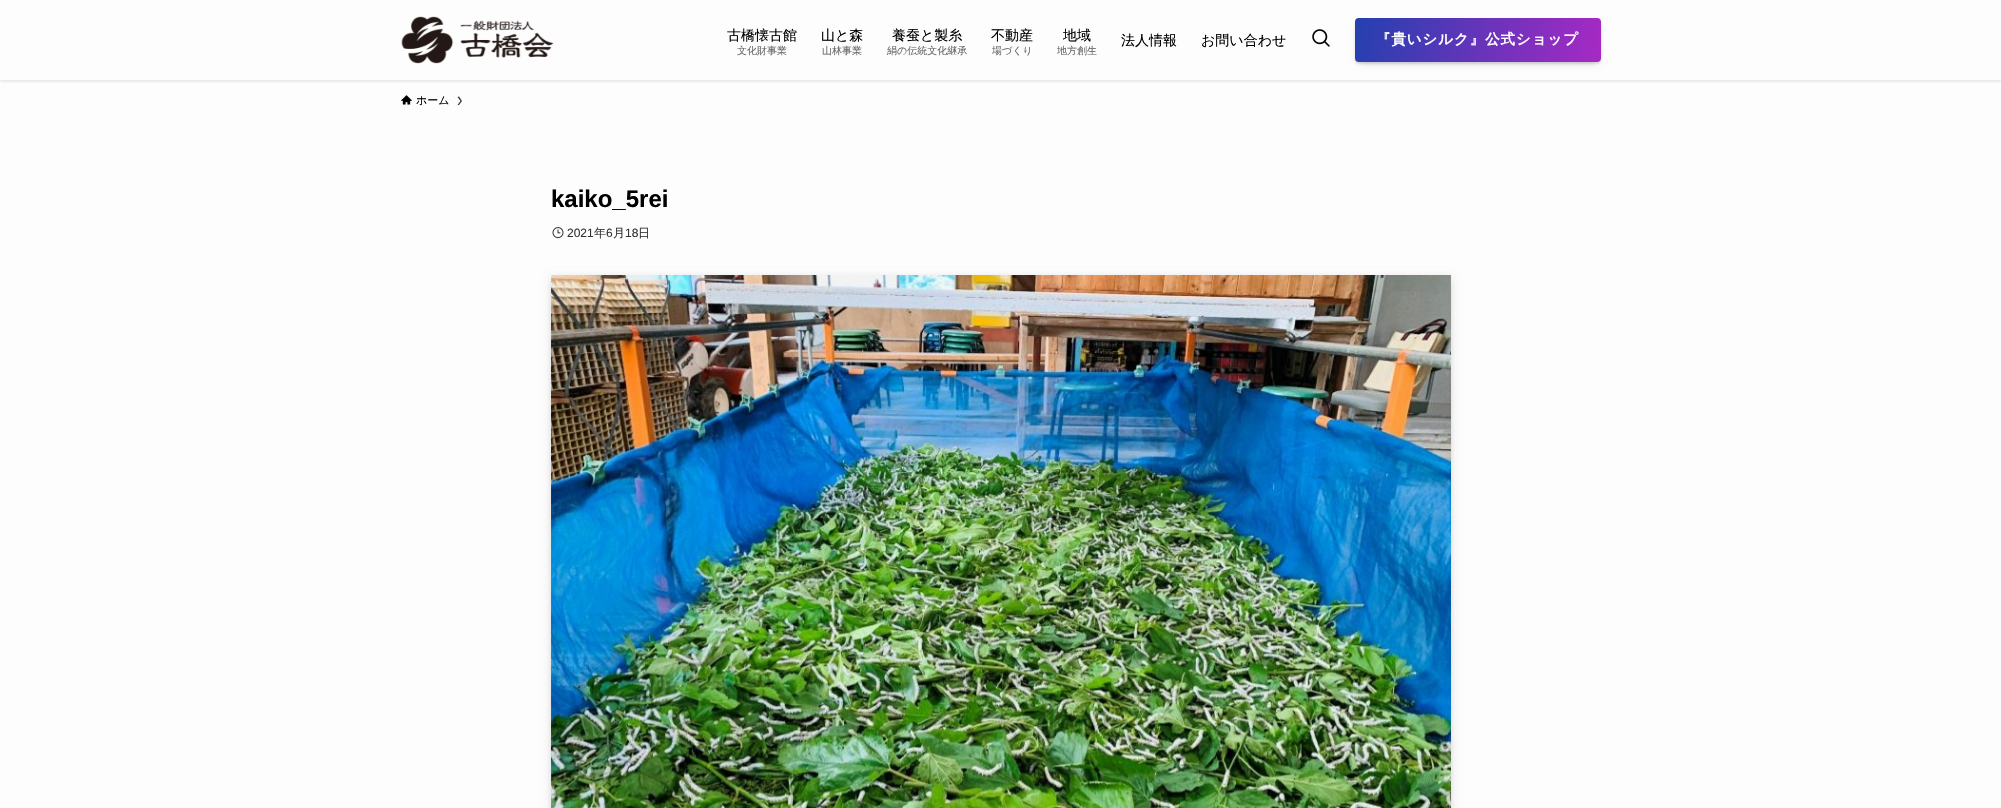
#include "include/core/SkBlurTypes.h"
#include "include/core/SkCanvas.h"
#include "include/core/SkData.h"
#include "include/core/SkFont.h"
#include "include/core/SkFontMgr.h"
#include "include/core/SkImage.h"
#include "include/core/SkMaskFilter.h"
#include "include/core/SkPaint.h"
#include "include/core/SkPathBuilder.h"
#include "include/core/SkTextBlob.h"
#include "include/effects/SkDashPathEffect.h"
#include "include/effects/SkGradientShader.h"
#include "include/utils/SkParsePath.h"

extern sk_sp<SkFontMgr> fontMgr;

void draw(SkCanvas* canvas) {
  SkPaint p;
  p.setAntiAlias(true);
  auto spacedText = [&](const char* s, float x, float y, const SkFont& font, const SkPaint& ink, float letter, float word) {
    std::vector<SkGlyphID> glyphs(font.countText(s, strlen(s), SkTextEncoding::kUTF8));
    std::vector<float> xs(glyphs.size());
    font.textToGlyphs(s, strlen(s), SkTextEncoding::kUTF8, glyphs);
    font.getXPos(glyphs, xs, x);
    float extra = 0;
    for (size_t i = 0; i < glyphs.size(); i++) {
      xs[i] += extra;
      extra += letter + word * (glyphs[i] == font.unicharToGlyph(' '));
    }
    canvas->drawTextBlob(SkTextBlob::MakeFromPosHGlyphs(glyphs, xs, y, font), 0, 0, ink);
  };
  canvas->clear(SkColorSetRGB(253, 253, 253));
  canvas->save();
  canvas->clipRect(SkRect::MakeLTRB(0, 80, 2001, 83));
  p.setColor(SkColorSetARGB(31, 0, 0, 0));
  p.setMaskFilter(SkMaskFilter::MakeBlur(kNormal_SkBlurStyle, 2));
  canvas->drawRect(SkRect::MakeLTRB(0, 1, 2001, 81), p);
  p.setMaskFilter(nullptr);
  canvas->restore();
  canvas->drawImageRect(SkImages::DeferredFromEncodedData(SkData::MakeFromFileName("images/1.png")), SkRect::MakeLTRB(401, 16, 554, 64), SkSamplingOptions());
  canvas->drawImageRect(SkImages::DeferredFromEncodedData(SkData::MakeFromFileName("images/2.png")), SkRect::MakeLTRB(1312, 29, 1330, 47), SkSamplingOptions());
  p.setColor(SkColorSetARGB(51, 0, 0, 0));
  p.setMaskFilter(SkMaskFilter::MakeBlur(kNormal_SkBlurStyle, 4));
  canvas->drawRect(SkRect::MakeLTRB(1359, 26, 1597, 62), p);
  p.setMaskFilter(nullptr);
  p.setColor(SkColorSetARGB(26, 0, 0, 0));
  p.setMaskFilter(SkMaskFilter::MakeBlur(kNormal_SkBlurStyle, 1));
  canvas->drawRoundRect(SkRect::MakeLTRB(1355, 20, 1601, 64), 4, 4, p);
  p.setMaskFilter(nullptr);
  {
    const SkColor colors[] = {SkColorSetRGB(36, 64, 175), SkColorSetRGB(167, 41, 196)};
    const float stops[] = {0, 1};
    const SkPoint ends[] = {{1355, 18}, {1601, 62}};
    p.setShader(SkGradientShader::MakeLinear(ends, colors, stops, 2, SkTileMode::kClamp));
    p.setAlpha(255);
  }
  canvas->drawRoundRect(SkRect::MakeLTRB(1355, 18, 1601, 62), 4, 4, p);
  canvas->drawImageRect(SkImages::DeferredFromEncodedData(SkData::MakeFromFileName("images/3.png")), SkRect::MakeLTRB(401, 95, 412, 105), SkSamplingOptions());
  p.setShader(nullptr);
  p.setColor(SkColorSetRGB(51, 51, 51));
  canvas->drawPath(SkPathBuilder().moveTo(459, 96.5f).lineTo(457.5f, 97).lineTo(460.5f, 101).lineTo(457.5f, 105).lineTo(459, 105).lineTo(462, 101).close().detach(), p);
  canvas->drawImageRect(SkImages::DeferredFromEncodedData(SkData::MakeFromFileName("images/4.png")), SkRect::MakeLTRB(552, 227, 564, 239), SkSamplingOptions());
  p.setColor(SkColorSetARGB(51, 0, 0, 0));
  p.setMaskFilter(SkMaskFilter::MakeBlur(kNormal_SkBlurStyle, 4));
  canvas->drawRect(SkRect::MakeLTRB(555, 283, 1447, 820), p);
  p.setMaskFilter(nullptr);
  p.setColor(SkColorSetARGB(26, 0, 0, 0));
  p.setMaskFilter(SkMaskFilter::MakeBlur(kNormal_SkBlurStyle, 4));
  canvas->drawRect(SkRect::MakeLTRB(551, 277, 1451, 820), p);
  p.setMaskFilter(nullptr);
  canvas->drawImageRect(SkImages::DeferredFromEncodedData(SkData::MakeFromFileName("images/5.png")), SkRect::MakeLTRB(551, 275, 1451, 808), SkSamplingOptions());
  SkFont font1(fontMgr->matchFamilyStyle("WenQuanYi Zen Hei", SkFontStyle(500, SkFontStyle::kNormal_Width, SkFontStyle::kUpright_Slant)), 14);
  font1.setSubpixel(true);
  p.setColor(SK_ColorBLACK);
  canvas->drawString("古橋懐古館", 727, 40, font1, p);
  SkFont font2(fontMgr->matchFamilyStyle("WenQuanYi Zen Hei", SkFontStyle(500, SkFontStyle::kNormal_Width, SkFontStyle::kUpright_Slant)), 10);
  font2.setSubpixel(true);
  p.setColor(SkColorSetRGB(101, 101, 101));
  canvas->drawString("文化財事業", 737, 54, font2, p);
  p.setColor(SK_ColorBLACK);
  canvas->drawString("山と森", 821, 40, font1, p);
  p.setColor(SkColorSetRGB(101, 101, 101));
  canvas->drawString("山林事業", 822, 54, font2, p);
  p.setColor(SK_ColorBLACK);
  canvas->drawString("養蚕と製糸", 892, 40, font1, p);
  p.setColor(SkColorSetRGB(101, 101, 101));
  canvas->drawString("絹の伝統文化継承", 887, 54, font2, p);
  p.setColor(SK_ColorBLACK);
  canvas->drawString("不動産", 991, 40, font1, p);
  p.setColor(SkColorSetRGB(101, 101, 101));
  canvas->drawString("場づくり", 992, 54, font2, p);
  p.setColor(SK_ColorBLACK);
  canvas->drawString("地域", 1063, 40, font1, p);
  p.setColor(SkColorSetRGB(101, 101, 101));
  canvas->drawString("地方創生", 1057, 54, font2, p);
  p.setColor(SK_ColorBLACK);
  canvas->drawString("法人情報", 1121, 45, font1, p);
  canvas->drawString("お問い合わせ", 1201, 45, font1, p);
  SkFont font3(fontMgr->matchFamilyStyle("WenQuanYi Zen Hei", SkFontStyle::Bold()), 14.4f);
  font3.setSubpixel(true);
  p.setColor(SK_ColorWHITE);
  spacedText("『貴いシルク』公式ショップ", 1376, 44, font3, p, 1, 0);
  SkFont font4(fontMgr->matchFamilyStyle("WenQuanYi Zen Hei", SkFontStyle(500, SkFontStyle::kNormal_Width, SkFontStyle::kUpright_Slant)), 11);
  font4.setSubpixel(true);
  p.setColor(SK_ColorBLACK);
  canvas->drawString("ホーム", 416, 104, font4, p);
  SkFont font5(fontMgr->matchFamilyStyle("Liberation Sans", SkFontStyle::Bold()), 24);
  font5.setSubpixel(true);
  canvas->drawString("kaiko_5rei", 551, 207, font5, p);
  SkFont font6(fontMgr->matchFamilyStyle("Liberation Sans", SkFontStyle::Normal()), 12);
  font6.setSubpixel(true);
  p.setColor(SkColorSetRGB(51, 51, 51));
  canvas->drawString("2021", 567, 237, font6, p);
  SkFont font7(fontMgr->matchFamilyStyle("WenQuanYi Zen Hei", SkFontStyle(500, SkFontStyle::kNormal_Width, SkFontStyle::kUpright_Slant)), 12);
  font7.setSubpixel(true);
  canvas->drawString("年", 594, 237, font7, p);
  canvas->drawString("6", 606, 237, font6, p);
  canvas->drawString("月", 613, 237, font7, p);
  canvas->drawString("18", 625, 237, font6, p);
  canvas->drawString("日", 638, 237, font7, p);
}
